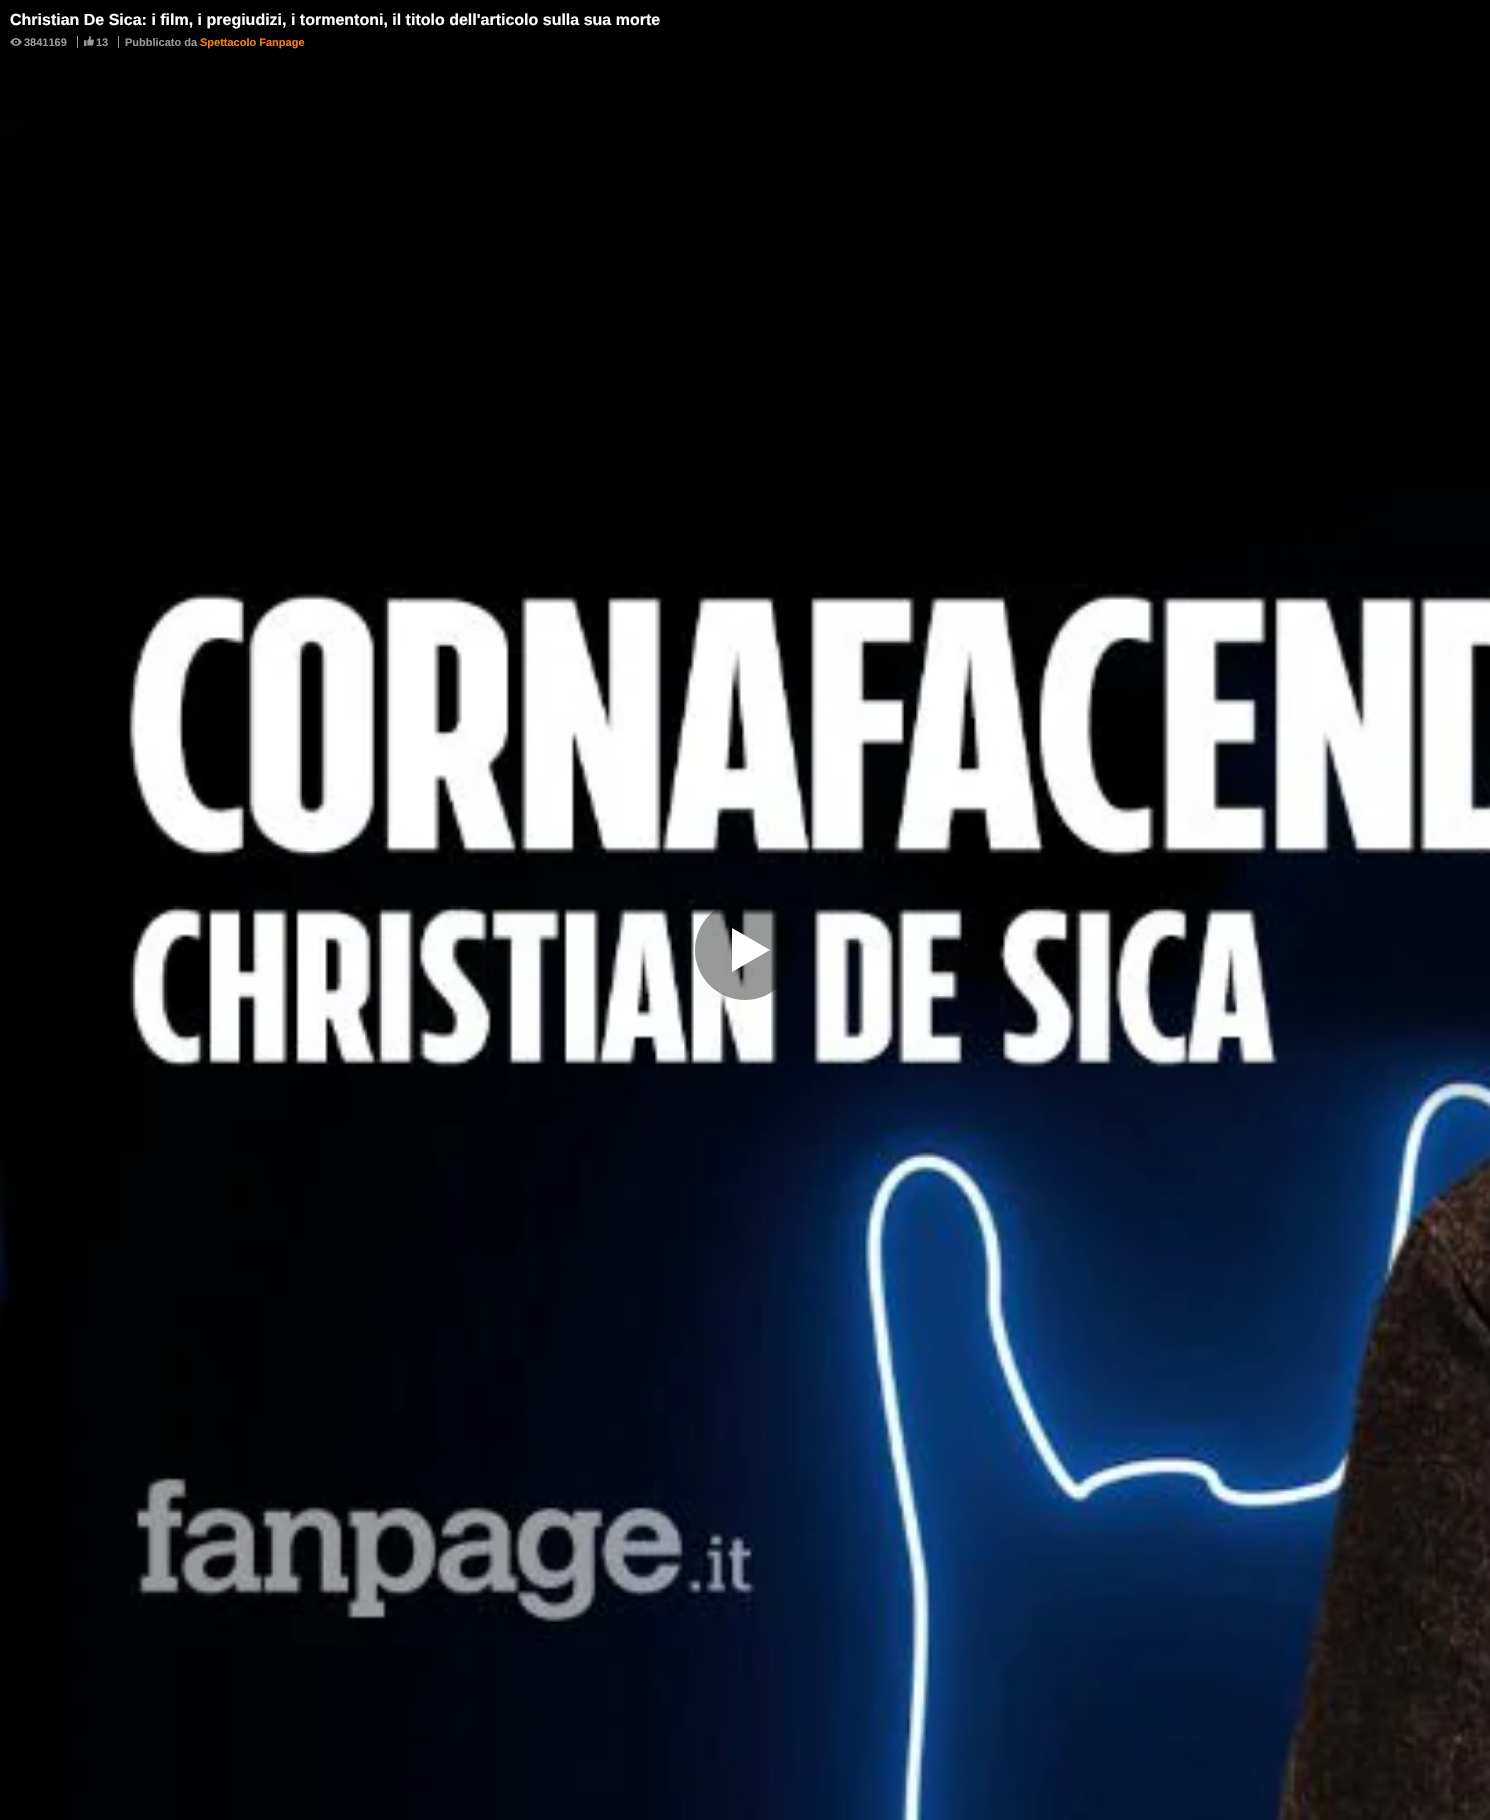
#include "include/core/SkBlurTypes.h"
#include "include/core/SkCanvas.h"
#include "include/core/SkData.h"
#include "include/core/SkFont.h"
#include "include/core/SkFontMgr.h"
#include "include/core/SkImage.h"
#include "include/core/SkMaskFilter.h"
#include "include/core/SkPaint.h"
#include "include/core/SkPathBuilder.h"
#include "include/core/SkTextBlob.h"
#include "include/effects/SkDashPathEffect.h"
#include "include/effects/SkGradientShader.h"
#include "include/utils/SkParsePath.h"

extern sk_sp<SkFontMgr> fontMgr;

void draw(SkCanvas* canvas) {
  SkPaint p;
  p.setAntiAlias(true);
  canvas->clear(SK_ColorBLACK);
  canvas->drawImageRect(SkImages::DeferredFromEncodedData(SkData::MakeFromFileName("images/1.png")), SkRect::MakeLTRB(10, 38, 22, 46), SkSamplingOptions());
  p.setColor(SkColorSetRGB(153, 153, 153));
  canvas->drawRect(SkRect::MakeLTRB(77, 36, 78, 48), p);
  canvas->drawImageRect(SkImages::DeferredFromEncodedData(SkData::MakeFromFileName("images/2.png")), SkRect::MakeLTRB(84, 36, 94, 46), SkSamplingOptions());
  canvas->drawRect(SkRect::MakeLTRB(118, 36, 119, 48), p);
  canvas->drawImageRect(SkImages::DeferredFromEncodedData(SkData::MakeFromFileName("images/3.png")), SkRect::MakeLTRB(0, 113, 1490, 1820), SkSamplingOptions());
  p.setColor(SkColorSetARGB(102, 0, 0, 0));
  canvas->drawPath(SkPathBuilder().moveTo(745, 900).cubicTo(718, 900, 695, 922, 695, 950).cubicTo(695, 978, 718, 1000, 745, 1000).cubicTo(772, 1000, 795, 978, 795, 950).cubicTo(795, 922, 772, 900, 745, 900).close().detach(), p);
  p.setColor(SK_ColorWHITE);
  canvas->drawPath(SkPathBuilder().moveTo(732, 928).lineTo(770, 950).lineTo(732, 972).close().detach(), p);
  SkFont font1(fontMgr->matchFamilyStyle("Liberation Sans", SkFontStyle::Bold()), 16);
  font1.setSubpixel(true);
  canvas->drawString("Christian De Sica: i film, i pregiudizi, i tormentoni, il titolo dell'articolo sulla sua morte", 10, 25, font1, p);
  SkFont font2(fontMgr->matchFamilyStyle("Liberation Sans", SkFontStyle::Bold()), 11);
  font2.setSubpixel(true);
  p.setColor(SkColorSetRGB(153, 153, 153));
  canvas->drawString("3841169", 24, 46, font2, p);
  canvas->drawString("13", 96, 46, font2, p);
  canvas->drawString("Pubblicato da", 125, 46, font2, p);
  p.setColor(SkColorSetRGB(255, 125, 16));
  canvas->drawString("Spettacolo Fanpage", 200, 46, font2, p);
}
